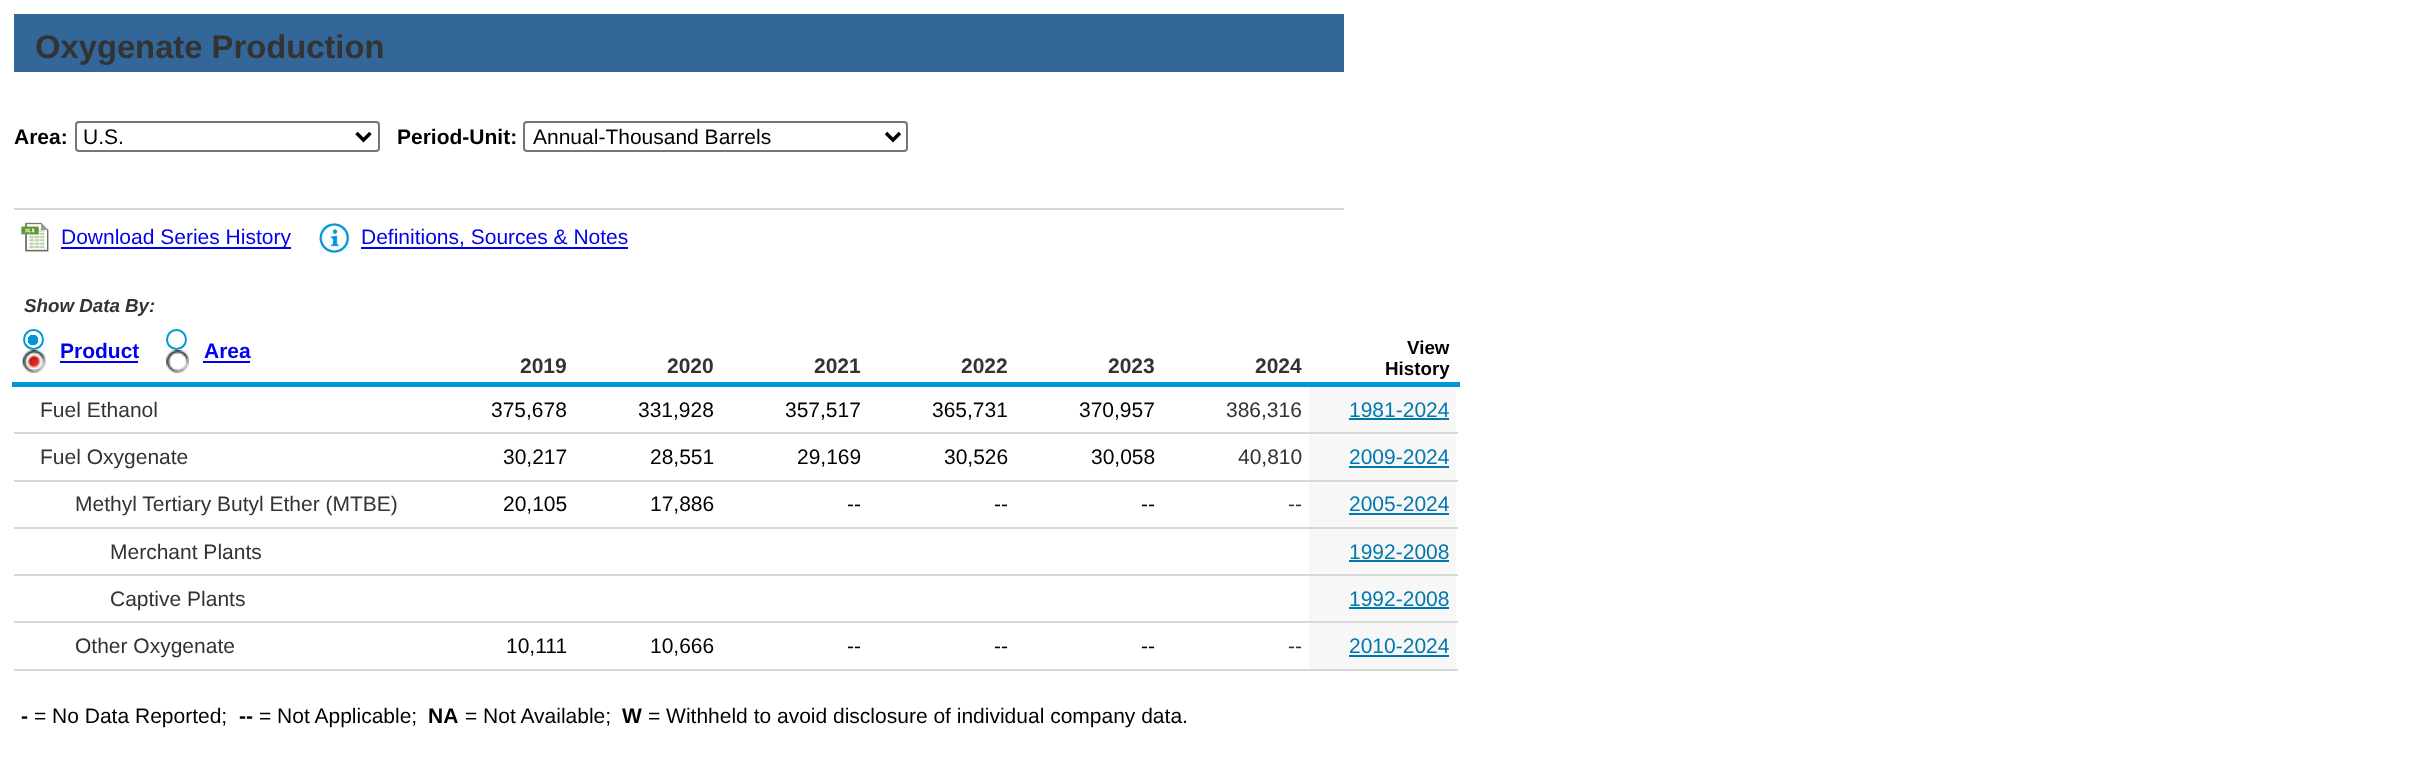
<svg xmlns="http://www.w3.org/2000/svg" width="2432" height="758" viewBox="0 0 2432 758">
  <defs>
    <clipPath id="clip1"><rect x="23" y="329" width="21" height="21" rx="10.5"/></clipPath>
    <radialGradient id="g1" gradientUnits="userSpaceOnUse" cx="33" cy="340" r="12"><stop offset="0" stop-color="#0096d7"/><stop offset="0.45" stop-color="#0096d7"/><stop offset="0.45" stop-color="#fff"/></radialGradient>
  </defs>
  <rect width="100%" height="100%" fill="#fff"/>
  <path d="M14 208h1330v2H14z" fill="#d8d8d8"/>
  <path d="M14 14h1330v58H14z" fill="#369"/>
  <rect x="76" y="122" width="303" height="29" rx="3" fill="none" stroke="#767676" stroke-width="2"/>
  <path d="M356.5 133L363.5 140L370.5 133" fill="none" stroke="#000" stroke-width="3.5"/>
  <rect x="524" y="122" width="383" height="29" rx="3" fill="none" stroke="#767676" stroke-width="2"/>
  <path d="M886 133L893 140L900 133" fill="none" stroke="#000" stroke-width="3.5"/>
  <image x="20" y="222" width="29" height="30" href="img/1.png"/>
  <path d="M61 247h230v2H61z" fill="#00e"/>
  <image x="319" y="223" width="31" height="30" href="img/2.png"/>
  <path d="M361 247h267v2H361z" fill="#00e"/>
  <g clip-path="url(#clip1)">
    <path d="M25 331h17v17H25z" fill="url(#g1)"/>
  </g>
  <circle cx="33.5" cy="339.5" r="9.5" fill="none" stroke="#0096d7" stroke-width="2"/>
  <image x="22" y="350" width="24" height="23" href="img/3.png"/>
  <path d="M60 361h78v2H60z" fill="#00e"/>
  <circle cx="176.5" cy="339.5" r="9.5" fill="none" stroke="#0096d7" stroke-width="2"/>
  <image x="166" y="350" width="23" height="23" href="img/4.png"/>
  <path d="M203 361h47v2H203z" fill="#00e"/>
  <path d="M12 382h1448v5H12z" fill="#0096d7"/>
  <path d="M1309 387h147v45H1309z" fill="#f7f7f7"/>
  <path d="M14 432h1444v2H14z" fill="#d8d8d8"/>
  <path d="M1349 418h100v2H1349z" fill="#0078ac"/>
  <path d="M1309 434h147v46H1309z" fill="#f7f7f7"/>
  <path d="M14 480h1444v2H14z" fill="#d8d8d8"/>
  <path d="M1349 466h100v2H1349z" fill="#0078ac"/>
  <path d="M1309 482h147v45H1309z" fill="#f7f7f7"/>
  <path d="M14 527h1444v2H14z" fill="#d8d8d8"/>
  <path d="M1349 513h100v2H1349z" fill="#0078ac"/>
  <path d="M1309 529h147v45H1309z" fill="#f7f7f7"/>
  <path d="M14 574h1444v2H14z" fill="#d8d8d8"/>
  <path d="M1349 560h100v2H1349z" fill="#0078ac"/>
  <path d="M1309 576h147v45H1309z" fill="#f7f7f7"/>
  <path d="M14 621h1444v2H14z" fill="#d8d8d8"/>
  <path d="M1349 607h100v2H1349z" fill="#0078ac"/>
  <path d="M1309 623h147v46H1309z" fill="#f7f7f7"/>
  <path d="M14 669h1444v2H14z" fill="#d8d8d8"/>
  <path d="M1349 655h100v2H1349z" fill="#0078ac"/>
  <text x="35" y="58" font-family="Liberation Sans" font-size="32.75" font-weight="bold" fill="#333">Oxygenate Production</text>
  <text x="14" y="144" font-family="Liberation Sans" font-size="21" font-weight="bold" fill="#000">Area:</text>
  <text x="83" y="144" font-family="Liberation Sans" font-size="21" fill="#000">U.S.</text>
  <text x="397" y="144" font-family="Liberation Sans" font-size="21" font-weight="bold" fill="#000">Period-Unit:</text>
  <text x="533" y="144" font-family="Liberation Sans" font-size="21" fill="#000">Annual-Thousand Barrels</text>
  <g font-family="Liberation Sans" font-size="21" fill="#00e">
    <text x="61" y="244">Download Series History</text>
    <text x="361" y="244">Definitions, Sources &amp; Notes</text>
  </g>
  <text x="24" y="312" font-family="Liberation Sans" font-size="18.75" font-weight="bold" font-style="italic" fill="#333">Show Data By:</text>
  <g font-family="Liberation Sans" font-size="21" font-weight="bold" fill="#00e">
    <text x="60" y="358">Product</text>
    <text x="204" y="358">Area</text>
  </g>
  <g font-family="Liberation Sans" font-size="21" font-weight="bold" fill="#333">
    <text x="520" y="373">2019</text>
    <text x="667" y="373">2020</text>
    <text x="814" y="373">2021</text>
    <text x="961" y="373">2022</text>
    <text x="1108" y="373">2023</text>
    <text x="1255" y="373">2024</text>
  </g>
  <g font-family="Liberation Sans" font-size="18.75" font-weight="bold" fill="#000">
    <text x="1407" y="354">View</text>
    <text x="1385" y="375">History</text>
  </g>
  <text x="40" y="417" font-family="Liberation Sans" font-size="21" fill="#333">Fuel Ethanol</text>
  <g font-family="Liberation Sans" font-size="21" fill="#000">
    <text x="491" y="417">375,678</text>
    <text x="638" y="417">331,928</text>
    <text x="785" y="417">357,517</text>
    <text x="932" y="417">365,731</text>
    <text x="1079" y="417">370,957</text>
  </g>
  <text x="1226" y="417" font-family="Liberation Sans" font-size="21" fill="#333">386,316</text>
  <text x="1349" y="417" font-family="Liberation Sans" font-size="21" fill="#0078ac">1981-2024</text>
  <text x="40" y="464" font-family="Liberation Sans" font-size="21" fill="#333">Fuel Oxygenate</text>
  <g font-family="Liberation Sans" font-size="21" fill="#000">
    <text x="503" y="464">30,217</text>
    <text x="650" y="464">28,551</text>
    <text x="797" y="464">29,169</text>
    <text x="944" y="464">30,526</text>
    <text x="1091" y="464">30,058</text>
  </g>
  <text x="1238" y="464" font-family="Liberation Sans" font-size="21" fill="#333">40,810</text>
  <text x="1349" y="464" font-family="Liberation Sans" font-size="21" fill="#0078ac">2009-2024</text>
  <text x="75" y="511" font-family="Liberation Sans" font-size="21" fill="#333">Methyl Tertiary Butyl Ether (MTBE)</text>
  <g font-family="Liberation Sans" font-size="21" fill="#000">
    <text x="503" y="511">20,105</text>
    <text x="650" y="511">17,886</text>
    <text x="847" y="511">--</text>
    <text x="994" y="511">--</text>
    <text x="1141" y="511">--</text>
  </g>
  <text x="1288" y="511" font-family="Liberation Sans" font-size="21" fill="#333">--</text>
  <text x="1349" y="511" font-family="Liberation Sans" font-size="21" fill="#0078ac">2005-2024</text>
  <text x="110" y="559" font-family="Liberation Sans" font-size="21" fill="#333">Merchant Plants</text>
  <text x="1349" y="559" font-family="Liberation Sans" font-size="21" fill="#0078ac">1992-2008</text>
  <text x="110" y="606" font-family="Liberation Sans" font-size="21" fill="#333">Captive Plants</text>
  <text x="1349" y="606" font-family="Liberation Sans" font-size="21" fill="#0078ac">1992-2008</text>
  <text x="75" y="653" font-family="Liberation Sans" font-size="21" fill="#333">Other Oxygenate</text>
  <g font-family="Liberation Sans" font-size="21" fill="#000">
    <text x="506" y="653">10,111</text>
    <text x="650" y="653">10,666</text>
    <text x="847" y="653">--</text>
    <text x="994" y="653">--</text>
    <text x="1141" y="653">--</text>
  </g>
  <text x="1288" y="653" font-family="Liberation Sans" font-size="21" fill="#333">--</text>
  <text x="1349" y="653" font-family="Liberation Sans" font-size="21" fill="#0078ac">2010-2024</text>
  <text x="21" y="723" font-family="Liberation Sans" font-size="21" font-weight="bold" fill="#000">-</text>
  <text x="34" y="723" font-family="Liberation Sans" font-size="21" fill="#000">= No Data Reported;</text>
  <text x="239" y="723" font-family="Liberation Sans" font-size="21" font-weight="bold" fill="#000">--</text>
  <text x="259" y="723" font-family="Liberation Sans" font-size="21" fill="#000">= Not Applicable;</text>
  <text x="428" y="723" font-family="Liberation Sans" font-size="21" font-weight="bold" fill="#000">NA</text>
  <text x="465" y="723" font-family="Liberation Sans" font-size="21" fill="#000">= Not Available;</text>
  <text x="622" y="723" font-family="Liberation Sans" font-size="21" font-weight="bold" fill="#000">W</text>
  <text x="648" y="723" font-family="Liberation Sans" font-size="21" fill="#000">= Withheld to avoid disclosure of individual company data.</text>
</svg>
